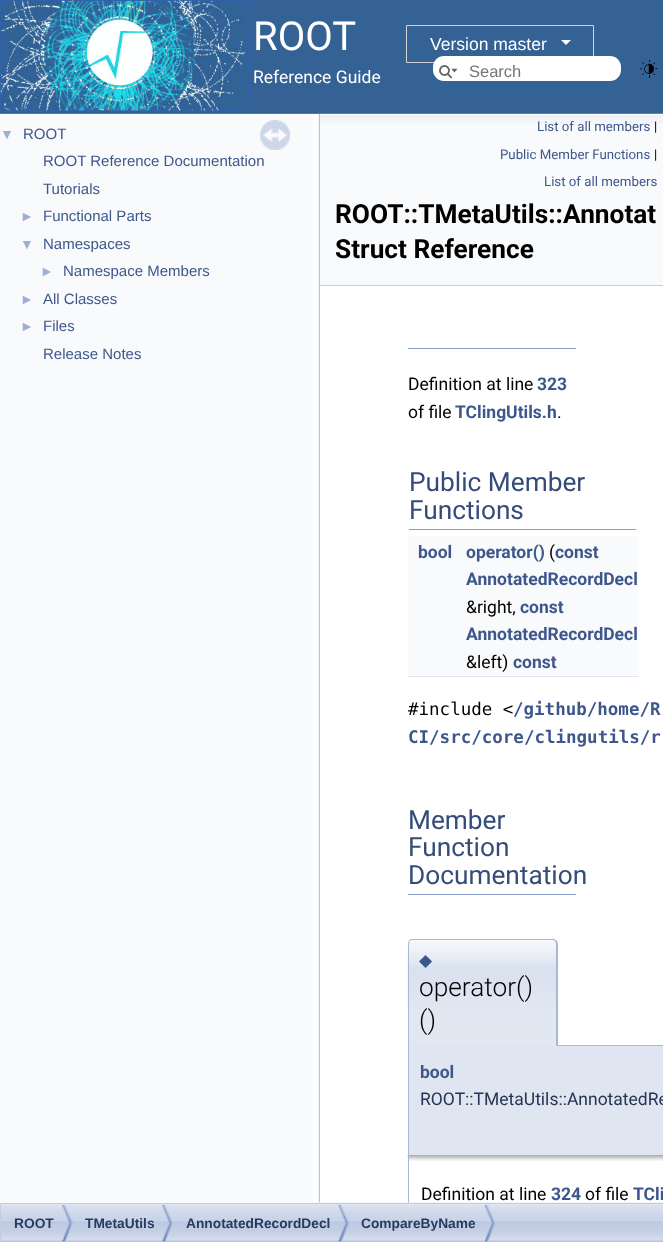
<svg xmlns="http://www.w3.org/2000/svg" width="663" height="1242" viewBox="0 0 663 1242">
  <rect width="100%" height="100%" fill="#fff"/>
  <path d="M0 113h663v1H0z" fill="#5373b4"/>
  <path d="M0 0h663v113H0z" fill="#346295"/>
  <image x="0" y="0" width="254" height="113" href="img/1.png"/>
  <path d="M406.5 25.5h187v37H406.5z" fill="none" stroke="#d3d3d3"/>
  <path d="M561 40H571L566 45Z" fill="#fff"/>
  <rect x="433" y="56" width="188" height="25" rx="11" fill="#fff"/>
  <image x="439" y="65" width="19" height="14" href="img/2.png"/>
  <image x="640" y="60" width="18" height="18" href="img/3.png"/>
  <image x="407" y="1155" width="256" height="6" href="img/8.png"/>
  <path d="M408 1155H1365V1224C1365 1227 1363 1229 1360 1229H412C410 1229 408 1227 408 1224ZM409 1155H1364V1224C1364 1226 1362 1228 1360 1228H412C410 1228 409 1226 409 1224Z" fill="#a8b8d9" fill-rule="evenodd"/>
  <image x="1" y="1202" width="662" height="40" href="img/9.png"/>
  <path d="M0 114h313v1089H0z" fill="#f9fafc"/>
  <image x="260" y="120" width="30" height="30" href="img/4.png"/>
  <image x="318" y="113" width="2" height="1090" href="img/5.png"/>
  <path d="M320 124h343v161H320z" fill="#f9fafc"/>
  <image x="320" y="113" width="343" height="11" href="img/6.png"/>
  <path d="M320 285h343v1H320z" fill="#c4cfe5"/>
  <path d="M408 348h168v1H408z" fill="#879ecb"/>
  <path d="M409 529h227v1H409z" fill="#879ecb"/>
  <path d="M408 536h230v139H408z" fill="#f9fafc"/>
  <path d="M408 676h230v1H408z" fill="#dee4f0"/>
  <path d="M408 894h168v1H408z" fill="#879ecb"/>
  <path d="M409 1046h254v109H409z" fill="#dfe5f1"/>
  <path d="M408 1045H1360C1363 1045 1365 1047 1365 1050V1155H408ZM409 1046H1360C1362 1046 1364 1048 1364 1050V1155H409Z" fill="#a8b8d9" fill-rule="evenodd"/>
  <path d="M413 939H553C556 939 558 941 558 944V1046H408V944C408 941 410 939 413 939Z" fill="#e2e8f2"/>
  <image x="407" y="940" width="151" height="70" href="img/7.png"/>
  <path d="M412 939H552C555 939 558 941 558 944V1046H408V944C408 941 410 939 412 939ZM412 940H552C555 940 556 942 556 944V1046H409V944C409 942 410 940 412 940Z" fill="#a8b8d9" fill-rule="evenodd"/>
  <path d="M0.5 1203.5h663v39H0.5z" fill="none" stroke="#c2cde4"/>
  <image x="62" y="1205" width="11" height="37" href="img/10.png"/>
  <image x="162" y="1205" width="11" height="37" href="img/11.png"/>
  <image x="338" y="1205" width="11" height="37" href="img/12.png"/>
  <image x="485" y="1205" width="10" height="37" href="img/13.png"/>
  <text x="253" y="50" font-family="Roboto" font-size="40" fill="#fff">ROOT</text>
  <text x="430" y="50" font-family="Liberation Sans" font-size="17.5" fill="#fff">Version master</text>
  <text x="253" y="83" font-family="Roboto" font-size="17.5" fill="#fff">Reference Guide</text>
  <text x="469" y="77" font-family="Liberation Sans" font-size="16.5" fill="#757575">Search</text>
  <text x="0" y="139" font-family="Liberation Sans" font-size="14" fill="#9cafd4">▼</text>
  <g font-family="Liberation Sans" font-size="15" fill="#3d578c">
    <text x="23" y="139">ROOT</text>
    <text x="43" y="166">ROOT Reference Documentation</text>
    <text x="43" y="194">Tutorials</text>
  </g>
  <text x="20" y="221" font-family="Liberation Sans" font-size="14" fill="#9cafd4">►</text>
  <text x="43" y="221" font-family="Liberation Sans" font-size="15" fill="#3d578c">Functional Parts</text>
  <text x="20" y="249" font-family="Liberation Sans" font-size="14" fill="#9cafd4">▼</text>
  <text x="43" y="249" font-family="Liberation Sans" font-size="15" fill="#3d578c">Namespaces</text>
  <text x="40" y="276" font-family="Liberation Sans" font-size="14" fill="#9cafd4">►</text>
  <text x="63" y="276" font-family="Liberation Sans" font-size="15" fill="#3d578c">Namespace Members</text>
  <text x="20" y="304" font-family="Liberation Sans" font-size="14" fill="#9cafd4">►</text>
  <text x="43" y="304" font-family="Liberation Sans" font-size="15" fill="#3d578c">All Classes</text>
  <text x="20" y="331" font-family="Liberation Sans" font-size="14" fill="#9cafd4">►</text>
  <g font-family="Liberation Sans" font-size="15" fill="#3d578c">
    <text x="43" y="331">Files</text>
    <text x="43" y="359">Release Notes</text>
  </g>
  <text x="537" y="131" font-family="Roboto" font-size="13.25" fill="#3d578c">List of all members</text>
  <text x="654" y="131" font-family="Roboto" font-size="13.25" fill="#000">|</text>
  <text x="500" y="159" font-family="Roboto" font-size="13.25" fill="#3d578c">Public Member Functions</text>
  <text x="654" y="159" font-family="Roboto" font-size="13.25" fill="#000">|</text>
  <text x="544" y="186" font-family="Roboto" font-size="13.25" fill="#3d578c">List of all members</text>
  <g font-family="Roboto" font-size="26.25" font-weight="bold" fill="#000">
    <text x="335" y="223">ROOT::TMetaUtils::Annotat</text>
    <text x="335" y="258">Struct Reference</text>
  </g>
  <text x="408" y="390" font-family="Roboto" font-size="17.5" fill="#000">Definition at line</text>
  <text x="537" y="390" font-family="Roboto" font-size="17.5" font-weight="bold" fill="#3d578c">323</text>
  <text x="408" y="418" font-family="Roboto" font-size="17.5" fill="#000">of file</text>
  <text x="455" y="418" font-family="Roboto" font-size="17.5" font-weight="bold" fill="#3d578c">TClingUtils.h</text>
  <text x="557" y="418" font-family="Roboto" font-size="17.5" fill="#000">.</text>
  <g font-family="Roboto" font-size="26.25" fill="#354c7b">
    <text x="409" y="491">Public Member</text>
    <text x="409" y="519">Functions</text>
  </g>
  <g font-family="Roboto" font-size="17.5" font-weight="bold" fill="#3d578c">
    <text x="418" y="558">bool</text>
    <text x="466" y="558">operator()</text>
  </g>
  <text x="549" y="558" font-family="Roboto" font-size="17.5" fill="#000">(</text>
  <g font-family="Roboto" font-size="17.5" font-weight="bold" fill="#3d578c">
    <text x="555" y="558">const</text>
    <text x="466" y="585">AnnotatedRecordDecl</text>
  </g>
  <text x="466" y="613" font-family="Roboto" font-size="17.5" fill="#000">&amp;right,</text>
  <g font-family="Roboto" font-size="17.5" font-weight="bold" fill="#3d578c">
    <text x="520" y="613">const</text>
    <text x="466" y="640">AnnotatedRecordDecl</text>
  </g>
  <text x="466" y="668" font-family="Roboto" font-size="17.5" fill="#000">&amp;left)</text>
  <text x="513" y="668" font-family="Roboto" font-size="17.5" font-weight="bold" fill="#3d578c">const</text>
  <text x="408" y="715" font-family="DejaVu Sans Mono" font-size="17.5" fill="#000">#include &lt;</text>
  <g font-family="DejaVu Sans Mono" font-size="17.5" font-weight="bold" fill="#3d578c">
    <text x="513" y="715">/github/home/R</text>
    <text x="408" y="743">CI/src/core/clingutils/r</text>
  </g>
  <g font-family="Roboto" font-size="26.25" fill="#354c7b">
    <text x="408" y="829">Member</text>
    <text x="408" y="856">Function</text>
    <text x="408" y="884">Documentation</text>
  </g>
  <text x="419" y="966" font-family="DejaVu Sans" font-size="17" fill="#3d578c">◆</text>
  <g font-family="Roboto" font-size="26.25" font-weight="300" fill="#000">
    <text x="419" y="996">operator()</text>
    <text x="419" y="1029">()</text>
  </g>
  <text x="420" y="1078" font-family="Roboto" font-size="17.5" font-weight="bold" fill="#3d578c">bool</text>
  <text x="420" y="1105" font-family="Roboto" font-size="17.5" fill="#253555">ROOT::TMetaUtils::AnnotatedRe</text>
  <text x="421" y="1200" font-family="Roboto" font-size="17.5" fill="#000">Definition at line</text>
  <text x="551" y="1200" font-family="Roboto" font-size="17.5" font-weight="bold" fill="#3d578c">324</text>
  <text x="585" y="1200" font-family="Roboto" font-size="17.5" fill="#000">of file</text>
  <text x="633" y="1200" font-family="Roboto" font-size="17.5" font-weight="bold" fill="#3d578c">TCli</text>
  <g font-family="Liberation Sans" font-size="13.75" font-weight="bold" fill="#283a5d">
    <text x="14" y="1228">ROOT</text>
    <text x="85" y="1228">TMetaUtils</text>
    <text x="186" y="1228">AnnotatedRecordDecl</text>
    <text x="361" y="1228">CompareByName</text>
  </g>
</svg>
